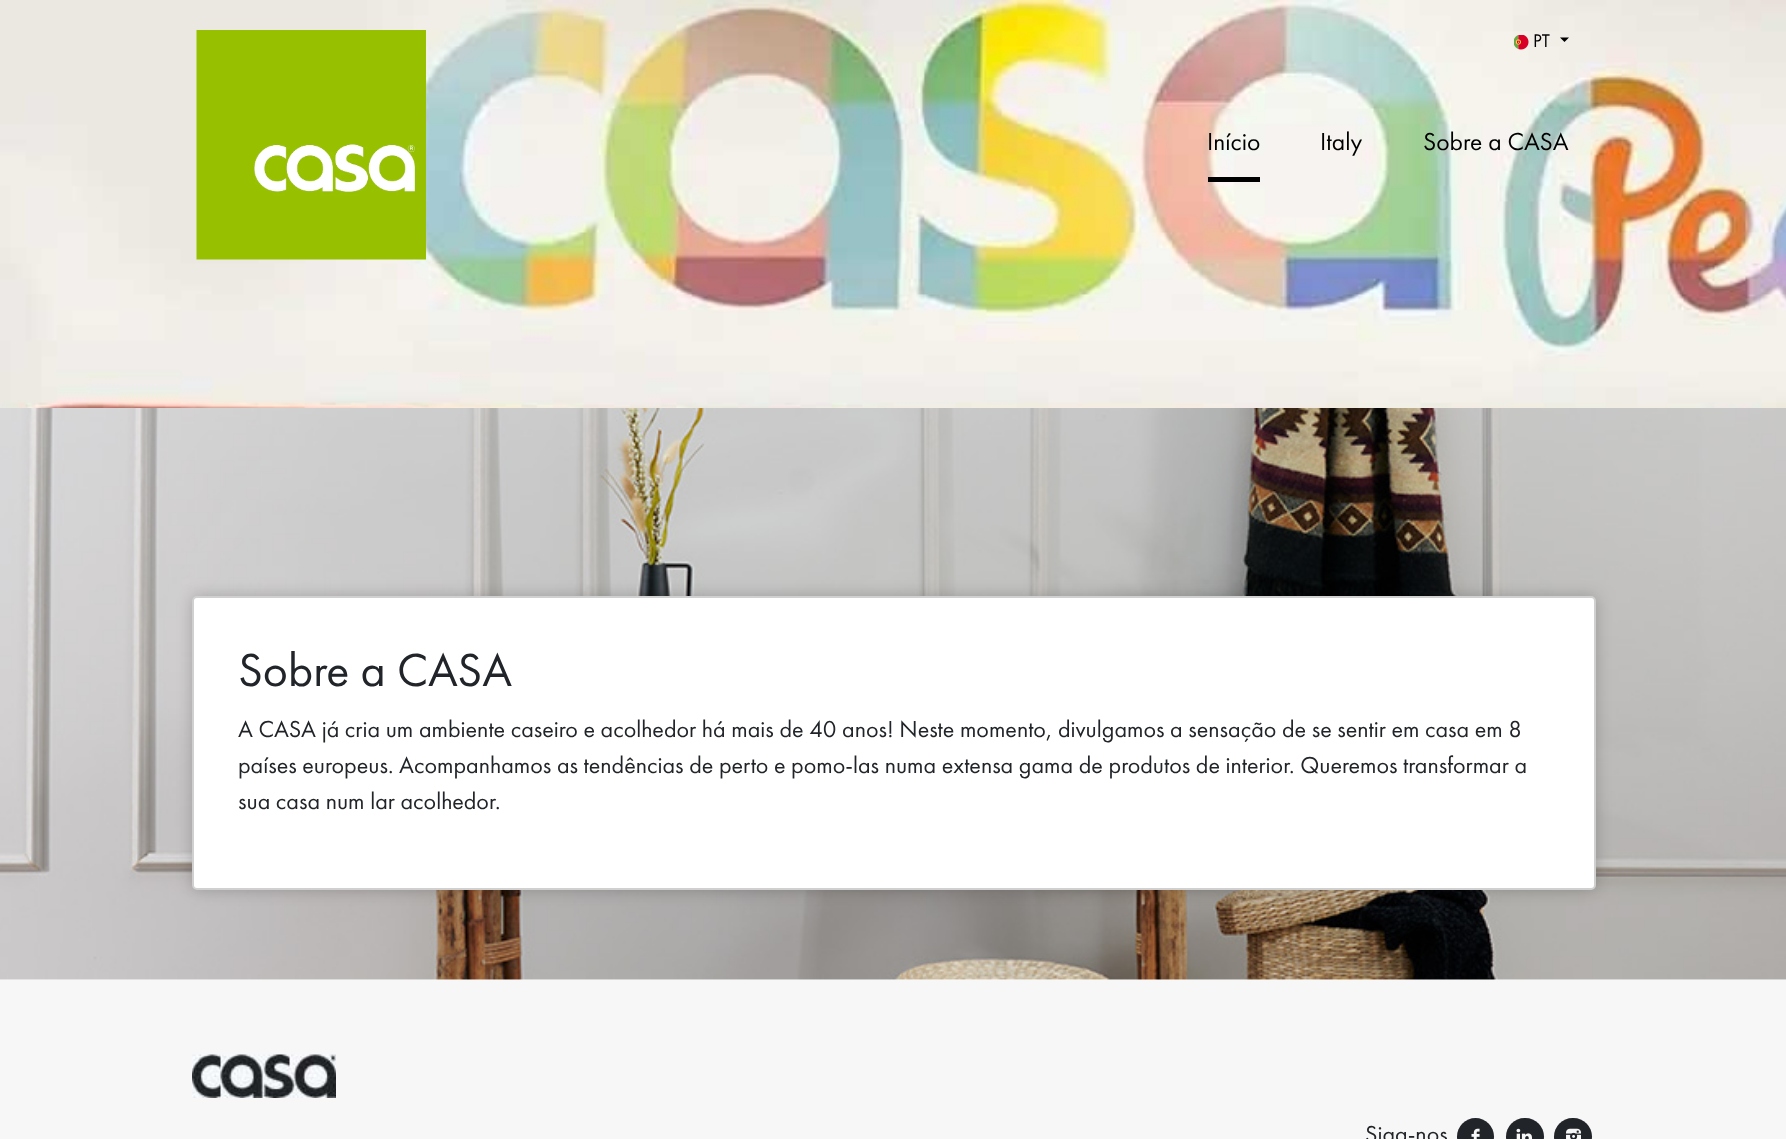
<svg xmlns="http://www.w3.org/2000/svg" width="1786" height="1139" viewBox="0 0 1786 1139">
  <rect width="100%" height="100%" fill="#fff"/>
  <image x="0" y="0" width="1786" height="408" href="img/1.png"/>
  <image x="1514" y="35" width="15" height="15" href="img/2.png"/>
  <path d="M1560 37.5H1569L1564.5 42Z" fill="#000"/>
  <image x="196" y="30" width="230" height="230" href="img/3.png"/>
  <path d="M1208 177h52v5H1208z" fill="#000"/>
  <image x="0" y="408" width="1786" height="572" href="img/4.png"/>
  <rect x="192" y="596" width="1404" height="294" rx="5" fill="#00000033" filter="blur(7.5px)"/>
  <rect x="193" y="597" width="1402" height="292" rx="4" fill="#fff" stroke="#d0d0d0" stroke-width="2"/>
  <path d="M0 980h1786v159H0z" fill="#f7f7f7"/>
  <image x="192" y="1054" width="144" height="44" href="img/5.png"/>
  <circle cx="1475.5" cy="1136.5" r="18.5" fill="#212529"/>
  <image x="1471" y="1128" width="9" height="11" href="img/6.png"/>
  <rect x="1506" y="1118" width="38" height="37" rx="18.5" fill="#212529"/>
  <image x="1516" y="1128" width="17" height="11" href="img/7.png"/>
  <rect x="1554" y="1118" width="38" height="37" rx="18.5" fill="#212529"/>
  <image x="1566" y="1128" width="15" height="11" href="img/8.png"/>
  <text x="1533" y="47" font-family="Futura PT" font-size="19" fill="#000">PT</text>
  <g font-family="Futura PT" font-size="25.5" fill="#000">
    <text x="1207" y="150">Início</text>
    <text x="1320" y="150">Italy</text>
    <text x="1423" y="150">Sobre a CASA</text>
  </g>
  <text x="238" y="686" font-family="Futura PT" font-size="48" fill="#212529">Sobre a CASA</text>
  <g font-family="Futura PT" font-size="24" fill="#212529">
    <text x="238" y="737">A CASA já cria um ambiente caseiro e acolhedor há mais de 40 anos! Neste momento, divulgamos a sensação de se sentir em casa em 8</text>
    <text x="238" y="773">países europeus. Acompanhamos as tendências de perto e pomo-las numa extensa gama de produtos de interior. Queremos transformar a</text>
    <text x="238" y="809">sua casa num lar acolhedor.</text>
    <text x="1365" y="1142">Siga-nos</text>
  </g>
</svg>
